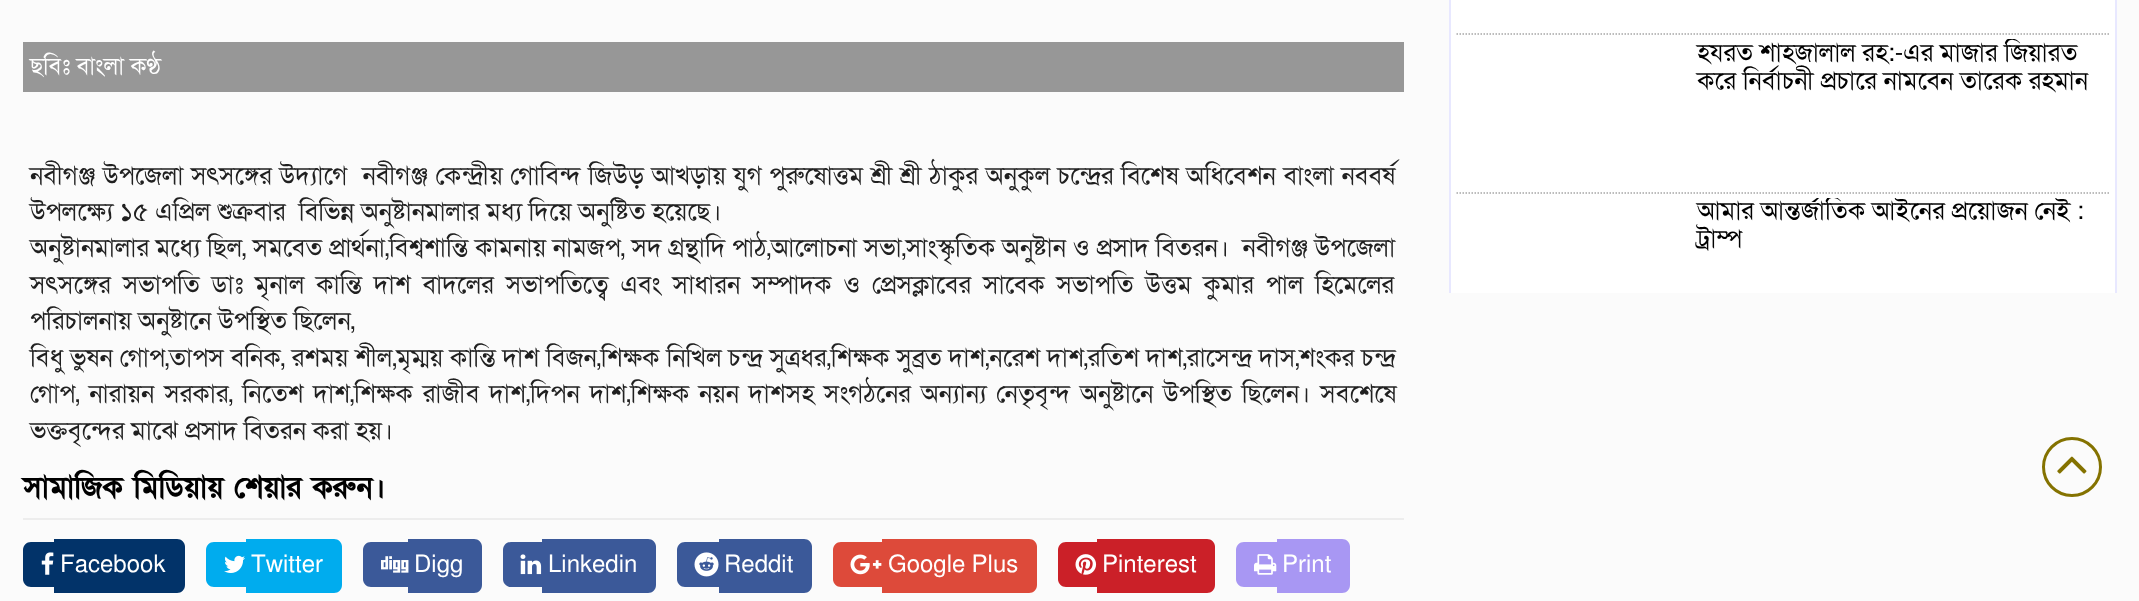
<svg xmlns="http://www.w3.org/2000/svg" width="2139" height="601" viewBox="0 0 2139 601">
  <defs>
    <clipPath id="clip1"><path d="M1457 39h652v153H1457z"/></clipPath>
    <clipPath id="clip2"><path d="M1457 198h652v95H1457z"/></clipPath>
  </defs>
  <rect width="100%" height="100%" fill="#fbfbfb"/>
  <path d="M23 42h1381v50H23z" fill="#979797"/>
  <path d="M23 518h1381v2H23z" fill="#ededed"/>
  <path d="M31 542H54V587H31C26.5 587 23 583.5 23 579V550C23 545.5 26.5 542 31 542Z" fill="#023369"/>
  <path d="M54 539H177C181.5 539 185 542.5 185 547V585C185 589.5 181.5 593 177 593H54Z" fill="#023369"/>
  <image x="41" y="552" width="13" height="23" href="img/1.png"/>
  <path d="M214 542H246V587H214C209.5 587 206 583.5 206 579V550C206 545.5 209.5 542 214 542Z" fill="#00acee"/>
  <path d="M246 539H334C338.5 539 342 542.5 342 547V585C342 589.5 338.5 593 334 593H246Z" fill="#00acee"/>
  <image x="224" y="555" width="21" height="18" href="img/2.png"/>
  <path d="M371 542H408V587H371C366.5 587 363 583.5 363 579V550C363 545.5 366.5 542 371 542Z" fill="#3b5999"/>
  <path d="M408 539H474C478.5 539 482 542.5 482 547V585C482 589.5 478.5 593 474 593H408Z" fill="#3b5999"/>
  <image x="381" y="556" width="28" height="17" href="img/3.png"/>
  <path d="M511 542H542V587H511C506.5 587 503 583.5 503 579V550C503 545.5 506.5 542 511 542Z" fill="#3b5999"/>
  <path d="M542 539H648C652.5 539 656 542.5 656 547V585C656 589.5 652.5 593 648 593H542Z" fill="#3b5999"/>
  <image x="520" y="554" width="22" height="21" href="img/4.png"/>
  <path d="M685 542H719V587H685C680.5 587 677 583.5 677 579V550C677 545.5 680.5 542 685 542Z" fill="#3b5999"/>
  <path d="M719 539H804C808.5 539 812 542.5 812 547V585C812 589.5 808.5 593 804 593H719Z" fill="#3b5999"/>
  <image x="694" y="552" width="25" height="25" href="img/5.png"/>
  <path d="M841 542H882V587H841C836.5 587 833 583.5 833 579V550C833 545.5 836.5 542 841 542Z" fill="#dd4a3a"/>
  <path d="M882 539H1029C1033.5 539 1037 542.5 1037 547V585C1037 589.5 1033.5 593 1029 593H882Z" fill="#dd4a3a"/>
  <image x="850" y="554" width="32" height="21" href="img/6.png"/>
  <path d="M1066 542H1097V587H1066C1061.5 587 1058 583.5 1058 579V550C1058 545.5 1061.5 542 1066 542Z" fill="#cb2028"/>
  <path d="M1097 539H1207C1211.5 539 1215 542.5 1215 547V585C1215 589.5 1211.5 593 1207 593H1097Z" fill="#cb2028"/>
  <image x="1075" y="554" width="22" height="21" href="img/7.png"/>
  <path d="M1244 542H1277V587H1244C1239.5 587 1236 583.5 1236 579V550C1236 545.5 1239.5 542 1244 542Z" fill="#a897f3"/>
  <path d="M1277 539H1342C1346.5 539 1350 542.5 1350 547V585C1350 589.5 1346.5 593 1342 593H1277Z" fill="#a897f3"/>
  <image x="1254" y="554" width="23" height="21" href="img/8.png"/>
  <path d="M1451 0h664v293H1451z" fill="#fff"/>
  <path d="M2115 0h2v293H2115z" fill="#e8e8ff"/>
  <path d="M1449 0h2v293H1449z" fill="#e8e8ff"/>
  <path d="M1456.5 34H2109" fill="none" stroke="#a6a6a6" stroke-width="1.5" stroke-dasharray="1.5 1.5"/>
  <path d="M1456.5 193H2109" fill="none" stroke="#a6a6a6" stroke-width="1.5" stroke-dasharray="1.5 1.5"/>
  <circle cx="2072" cy="467" r="28.5" fill="none" stroke="#847200" stroke-width="3"/>
  <image x="2057" y="456" width="30" height="18" href="img/9.png"/>
  <text x="30" y="74" font-family="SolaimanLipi" font-size="24" fill="#fff">ছবিঃ বাংলা কণ্ঠ</text>
  <g font-family="SolaimanLipi" font-size="25.5" fill="#202020">
    <text x="30" y="184" word-spacing="1" xml:space="preserve">নবীগঞ্জ উপজেলা সৎসঙ্গের উদ্যাগে  নবীগঞ্জ কেন্দ্রীয় গোবিন্দ জিউড় আখড়ায় যুগ পুরুষোত্তম শ্রী শ্রী ঠাকুর অনুকুল চন্দ্রের বিশেষ অধিবেশন বাংলা নববর্ষ</text>
    <text x="30" y="220" xml:space="preserve">উপলক্ষ্যে ১৫ এপ্রিল শুক্রবার  বিভিন্ন অনুষ্টানমালার মধ্য দিয়ে অনুষ্টিত হয়েছে।</text>
    <text x="30" y="256" word-spacing="0.1" xml:space="preserve">অনুষ্টানমালার মধ্যে ছিল, সমবেত প্রার্থনা,বিশ্বশান্তি কামনায় নামজপ, সদ গ্রন্থাদি পাঠ,আলোচনা সভা,সাংস্কৃতিক অনুষ্টান ও প্রসাদ বিতরন।  নবীগঞ্জ উপজেলা</text>
    <text x="30" y="293" word-spacing="5.25">সৎসঙ্গের সভাপতি ডাঃ মৃনাল কান্তি দাশ বাদলের সভাপতিত্বে এবং সাধারন সম্পাদক ও প্রেসক্লাবের সাবেক সভাপতি উত্তম কুমার পাল হিমেলের</text>
    <text x="30" y="329">পরিচালনায় অনুষ্টানে উপস্থিত ছিলেন,</text>
    <text x="30" y="366" word-spacing="0.25">বিধু ভুষন গোপ,তাপস বনিক, রশময় শীল,মৃম্ময় কান্তি দাশ বিজন,শিক্ষক নিখিল চন্দ্র সুত্রধর,শিক্ষক সুব্রত দাশ,নরেশ দাশ,রতিশ দাশ,রাসেন্দ্র দাস,শংকর চন্দ্র</text>
    <text x="30" y="402" word-spacing="3.25">গোপ, নারায়ন সরকার, নিতেশ দাশ,শিক্ষক রাজীব দাশ,দিপন দাশ,শিক্ষক নয়ন দাশসহ সংগঠনের অন্যান্য নেতৃবৃন্দ অনুষ্টানে উপস্থিত ছিলেন। সবশেষে</text>
    <text x="30" y="439">ভক্তবৃন্দের মাঝে প্রসাদ বিতরন করা হয়।</text>
  </g>
  <text x="23" y="497" font-family="SolaimanLipi" font-size="30" font-weight="bold" fill="#000">সামাজিক মিডিয়ায় শেয়ার করুন।</text>
  <g font-family="SolaimanLipi" font-size="24" fill="#fff">
    <text x="60" y="572">Facebook</text>
    <text x="251" y="572">Twitter</text>
    <text x="414" y="572">Digg</text>
    <text x="548" y="572">Linkedin</text>
    <text x="724" y="572">Reddit</text>
    <text x="888" y="572">Google Plus</text>
    <text x="1102" y="572">Pinterest</text>
    <text x="1282" y="572">Print</text>
  </g>
  <g clip-path="url(#clip1)">
    <text x="1697" y="61" font-family="SolaimanLipi" font-size="25.5" fill="#000">হযরত শাহজালাল রহ:-এর মাজার জিয়ারত</text>
  </g>
  <text x="1697" y="89" font-family="SolaimanLipi" font-size="25.5" fill="#000">করে নির্বাচনী প্রচারে নামবেন তারেক রহমান</text>
  <g clip-path="url(#clip2)">
    <text x="1697" y="219" font-family="SolaimanLipi" font-size="25.5" fill="#000">আমার আন্তর্জাতিক আইনের প্রয়োজন নেই :</text>
  </g>
  <text x="1697" y="247" font-family="SolaimanLipi" font-size="25.5" fill="#000">ট্রাম্প</text>
</svg>
